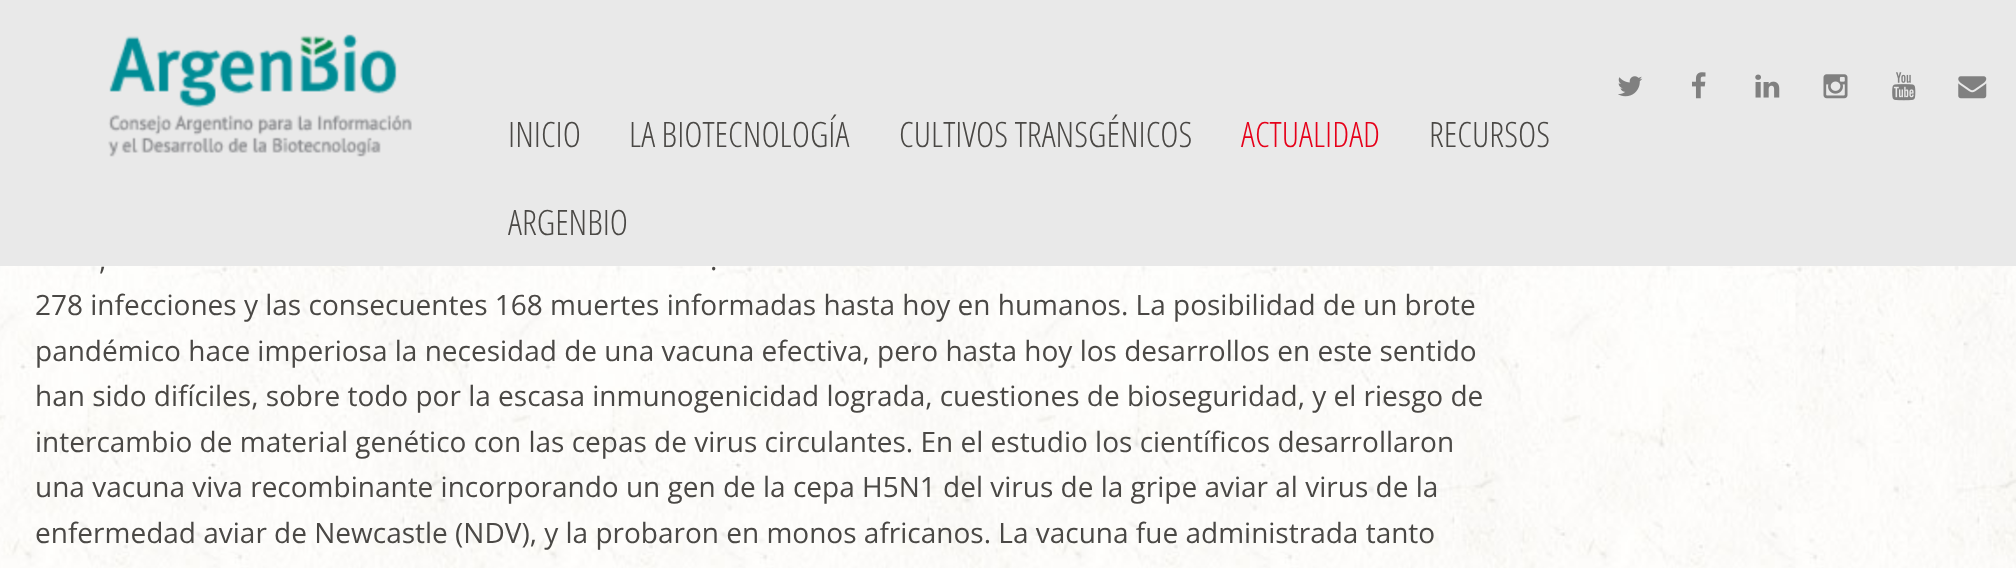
<svg xmlns="http://www.w3.org/2000/svg" width="2016" height="568" viewBox="0 0 2016 568">
  <rect width="100%" height="100%" fill="#fff"/>
  <image x="0" y="266" width="2016" height="302" href="img/1.png"/>
  <path d="M0 0h2016v266H0z" fill="#e9e9e9"/>
  <image x="108" y="34" width="304" height="123" href="img/2.png"/>
  <image x="1618" y="76" width="25" height="21" href="img/3.png"/>
  <image x="1692" y="72" width="14" height="27" href="img/4.png"/>
  <image x="1755" y="74" width="25" height="24" href="img/5.png"/>
  <image x="1823" y="74" width="25" height="25" href="img/6.png"/>
  <image x="1892" y="72" width="24" height="29" href="img/7.png"/>
  <image x="1958" y="76" width="29" height="23" href="img/8.png"/>
  <g font-family="Open Sans Condensed" font-size="35" font-weight="300" fill="#4a4845">
    <text x="508" y="147">INICIO</text>
    <text x="629" y="147">LA BIOTECNOLOGÍA</text>
    <text x="899" y="147">CULTIVOS TRANSGÉNICOS</text>
  </g>
  <text x="1241" y="147" font-family="Open Sans Condensed" font-size="35" font-weight="300" fill="#e60019">ACTUALIDAD</text>
  <g font-family="Open Sans Condensed" font-size="35" font-weight="300" fill="#4a4845">
    <text x="1429" y="147">RECURSOS</text>
    <text x="508" y="235">ARGENBIO</text>
  </g>
  <g font-family="Open Sans" font-size="28" fill="#4a4845">
    <text x="99" y="270">,</text>
    <text x="710" y="270">.</text>
    <text x="35" y="315">278 infecciones y las consecuentes 168 muertes informadas hasta hoy en humanos. La posibilidad de un brote</text>
    <text x="35" y="361">pandémico hace imperiosa la necesidad de una vacuna efectiva, pero hasta hoy los desarrollos en este sentido</text>
    <text x="35" y="406">han sido difíciles, sobre todo por la escasa inmunogenicidad lograda, cuestiones de bioseguridad, y el riesgo de</text>
    <text x="35" y="452">intercambio de material genético con las cepas de virus circulantes. En el estudio los científicos desarrollaron</text>
    <text x="35" y="497">una vacuna viva recombinante incorporando un gen de la cepa H5N1 del virus de la gripe aviar al virus de la</text>
    <text x="35" y="543">enfermedad aviar de Newcastle (NDV), y la probaron en monos africanos. La vacuna fue administrada tanto</text>
  </g>
</svg>
